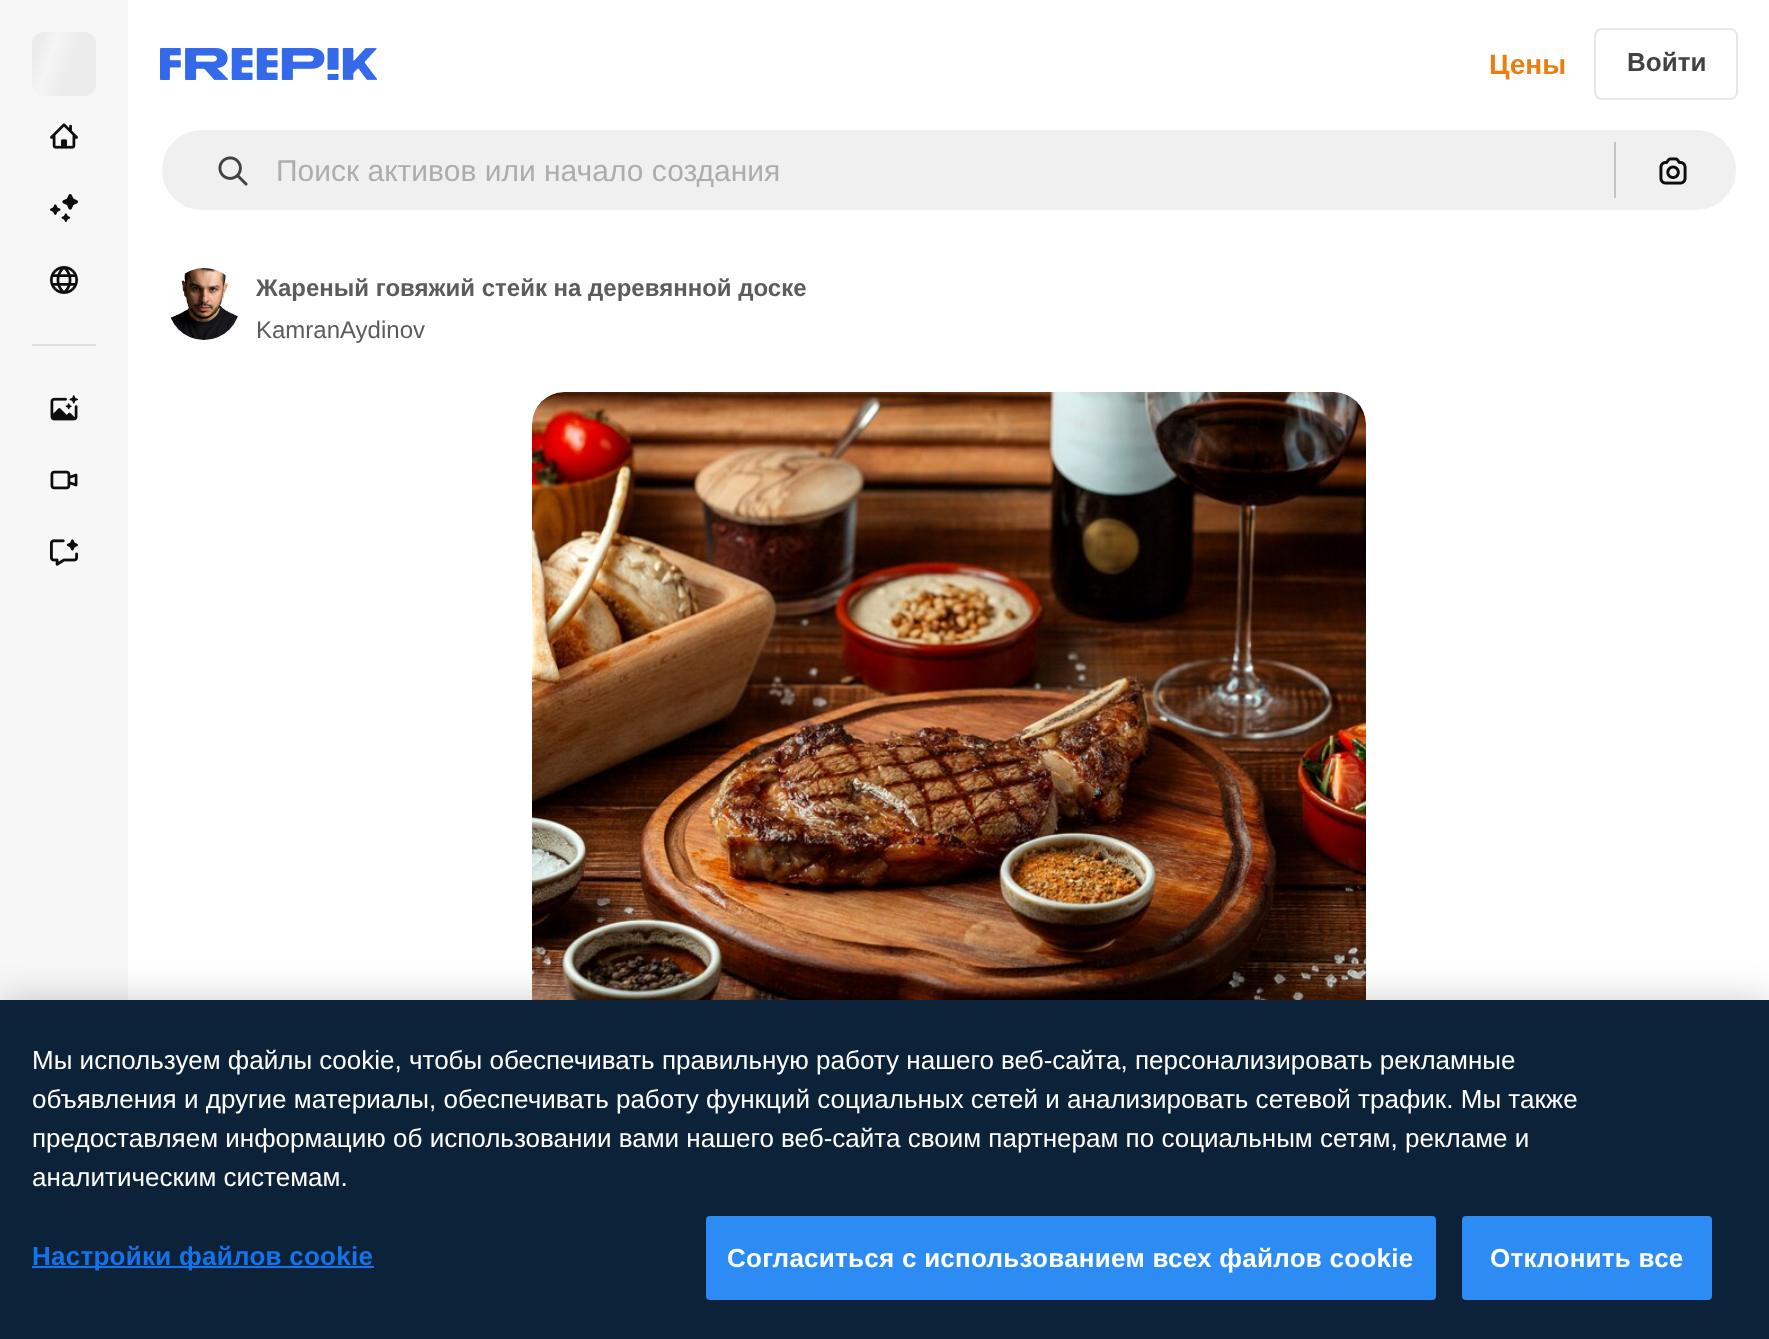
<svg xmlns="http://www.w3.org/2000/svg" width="1769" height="1339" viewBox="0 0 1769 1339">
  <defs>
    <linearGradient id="g1" gradientUnits="userSpaceOnUse" x1="29" y1="40" x2="163" y2="88"><stop offset="0.08" stop-color="#ececec"/><stop offset="0.18" stop-color="#f5f5f5"/><stop offset="0.33" stop-color="#ececec"/></linearGradient>
  </defs>
  <rect width="100%" height="100%" fill="#fff"/>
  <path d="M0 0h128v1000H0z" fill="#f7f7f7"/>
  <rect x="32" y="32" width="64" height="64" rx="12" fill="url(#g1)"/>
  <image x="50" y="123" width="28" height="26" href="img/1.png"/>
  <image x="50" y="194" width="28" height="28" href="img/2.png"/>
  <image x="50" y="266" width="28" height="28" href="img/3.png"/>
  <path d="M32 344h64v2H32z" fill="#e0e0e0"/>
  <image x="50" y="395" width="28" height="26" href="img/4.png"/>
  <image x="50" y="470" width="28" height="20" href="img/5.png"/>
  <image x="50" y="539" width="28" height="27" href="img/6.png"/>
  <image x="160" y="48" width="218" height="32" href="img/7.png"/>
  <rect x="1595" y="29" width="142" height="70" rx="7" fill="none" stroke="#e7e7e7" stroke-width="2"/>
  <rect x="161" y="129" width="1576" height="82" rx="41" fill="#f0f0f0" stroke="#fff" stroke-width="2"/>
  <image x="218" y="156" width="30" height="30" href="img/8.png"/>
  <path d="M1614 142h2v56H1614z" fill="#c3c3c3"/>
  <image x="1659" y="157" width="28" height="28" href="img/9.png"/>
  <image x="170" y="268" width="68" height="72" href="img/10.png"/>
  <image x="532" y="392" width="834" height="608" href="img/11.png"/>
  <path d="M0 1000h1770v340H0z" fill="#00000033" filter="blur(18px)"/>
  <path d="M0 1000h1769v339H0z" fill="#0b2239"/>
  <path d="M32 1266h342v2H32z" fill="#1273eb"/>
  <rect x="707" y="1217" width="728" height="82" rx="3" fill="#2c8cf4" stroke="#2c8cf4" stroke-width="2"/>
  <rect x="1463" y="1217" width="248" height="82" rx="3" fill="#2c8cf4" stroke="#2c8cf4" stroke-width="2"/>
  <text x="1489" y="74" font-family="Liberation Sans" font-size="28" font-weight="bold" fill="#ea7e11">Цены</text>
  <text x="1627" y="71" font-family="Liberation Sans" font-size="26" font-weight="bold" fill="#424242">Войти</text>
  <text x="276" y="181" font-family="Liberation Sans" font-size="30" fill="#adadad">Поиск активов или начало создания</text>
  <text x="256" y="296" font-family="Liberation Sans" font-size="24" font-weight="bold" fill="#5c5c5c">Жареный говяжий стейк на деревянной доске</text>
  <text x="256" y="338" font-family="Liberation Sans" font-size="24" fill="#5c5c5c">KamranAydinov</text>
  <g font-family="Liberation Sans" font-size="26.02" fill="#fff">
    <text x="32" y="1069">Мы используем файлы cookie, чтобы обеспечивать правильную работу нашего веб-сайта, персонализировать рекламные</text>
    <text x="32" y="1108">объявления и другие материалы, обеспечивать работу функций социальных сетей и анализировать сетевой трафик. Мы также</text>
    <text x="32" y="1147">предоставляем информацию об использовании вами нашего веб-сайта своим партнерам по социальным сетям, рекламе и</text>
    <text x="32" y="1186">аналитическим системам.</text>
  </g>
  <text x="32" y="1265" font-family="Liberation Sans" font-size="26.02" font-weight="bold" letter-spacing="0.25" fill="#1273eb">Настройки файлов cookie</text>
  <g font-family="Liberation Sans" font-size="26.02" font-weight="bold" letter-spacing="0.25" fill="#fff">
    <text x="727" y="1267">Согласиться с использованием всех файлов cookie</text>
    <text x="1490" y="1267">Отклонить все</text>
  </g>
</svg>
